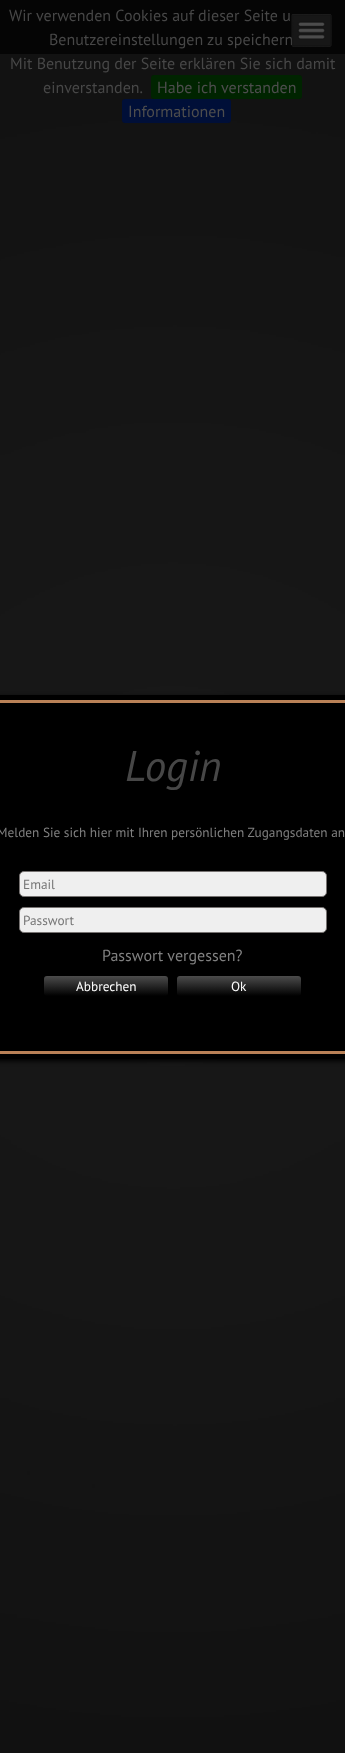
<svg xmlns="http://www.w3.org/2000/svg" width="345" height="1753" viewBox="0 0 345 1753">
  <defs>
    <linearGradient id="g1" gradientUnits="userSpaceOnUse" x1="106" y1="976" x2="106" y2="996"><stop offset="0" stop-color="#4c4c4c"/><stop offset="1" stop-color="#000"/></linearGradient>
    <linearGradient id="g2" gradientUnits="userSpaceOnUse" x1="239" y1="976" x2="239" y2="996"><stop offset="0" stop-color="#4c4c4c"/><stop offset="1" stop-color="#000"/></linearGradient>
  </defs>
  <rect width="100%" height="100%" fill="#fff"/>
  <image x="0" y="54" width="345" height="1699" href="img/1.png"/>
  <path d="M0 0h345v54H0z" fill="#050505"/>
  <rect x="151" y="75" width="151" height="24" rx="3" fill="#002400"/>
  <rect x="122" y="99" width="109" height="24" rx="3" fill="#000f38"/>
  <path d="M-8 697h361v364H-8z" fill="#000" filter="blur(2.5px)"/>
  <path d="M-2.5 697.5h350v359H-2.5z" fill="#b98157" stroke="#000" stroke-width="5"/>
  <path d="M0 703h345v348H0z" fill="#000"/>
  <rect x="19.5" y="871.5" width="307" height="25" rx="4.5" fill="#efefef" stroke="#767271"/>
  <rect x="19.5" y="907.5" width="307" height="25" rx="4.5" fill="#efefef" stroke="#767271"/>
  <rect x="44" y="976" width="124" height="20" rx="3" fill="url(#g1)"/>
  <rect x="177" y="976" width="124" height="20" rx="3" fill="url(#g2)"/>
  <g font-family="PT Sans" font-size="16" fill="#474747">
    <text x="9" y="21">Wir verwenden Cookies auf dieser Seite u</text>
    <text x="49" y="45">Benutzereinstellungen zu speichern</text>
    <text x="10" y="69">Mit Benutzung der Seite erklären Sie sich damit</text>
    <text x="43" y="93">einverstanden.</text>
  </g>
  <g font-family="PT Sans" font-size="16" fill="#4d4d4d">
    <text x="157" y="93">Habe ich verstanden</text>
    <text x="128" y="117">Informationen</text>
  </g>
  <image x="291" y="14" width="41" height="33" href="img/2.png"/>
  <text x="125" y="781" font-family="PT Sans" font-size="43" font-style="italic" fill="#474747">Login</text>
  <text x="-3" y="837" font-family="PT Sans" font-size="13.3" fill="#808080">Melden Sie sich hier mit Ihren persönlichen Zugangsdaten an</text>
  <g font-family="PT Sans" font-size="13.3" fill="#757575">
    <text x="23" y="889">Email</text>
    <text x="23" y="925">Passwort</text>
  </g>
  <text x="102" y="961" font-family="PT Sans" font-size="16" fill="#808080">Passwort vergessen?</text>
  <g font-family="PT Sans" font-size="13.3" fill="#fff">
    <text x="76" y="991">Abbrechen</text>
    <text x="231" y="991">Ok</text>
  </g>
</svg>
